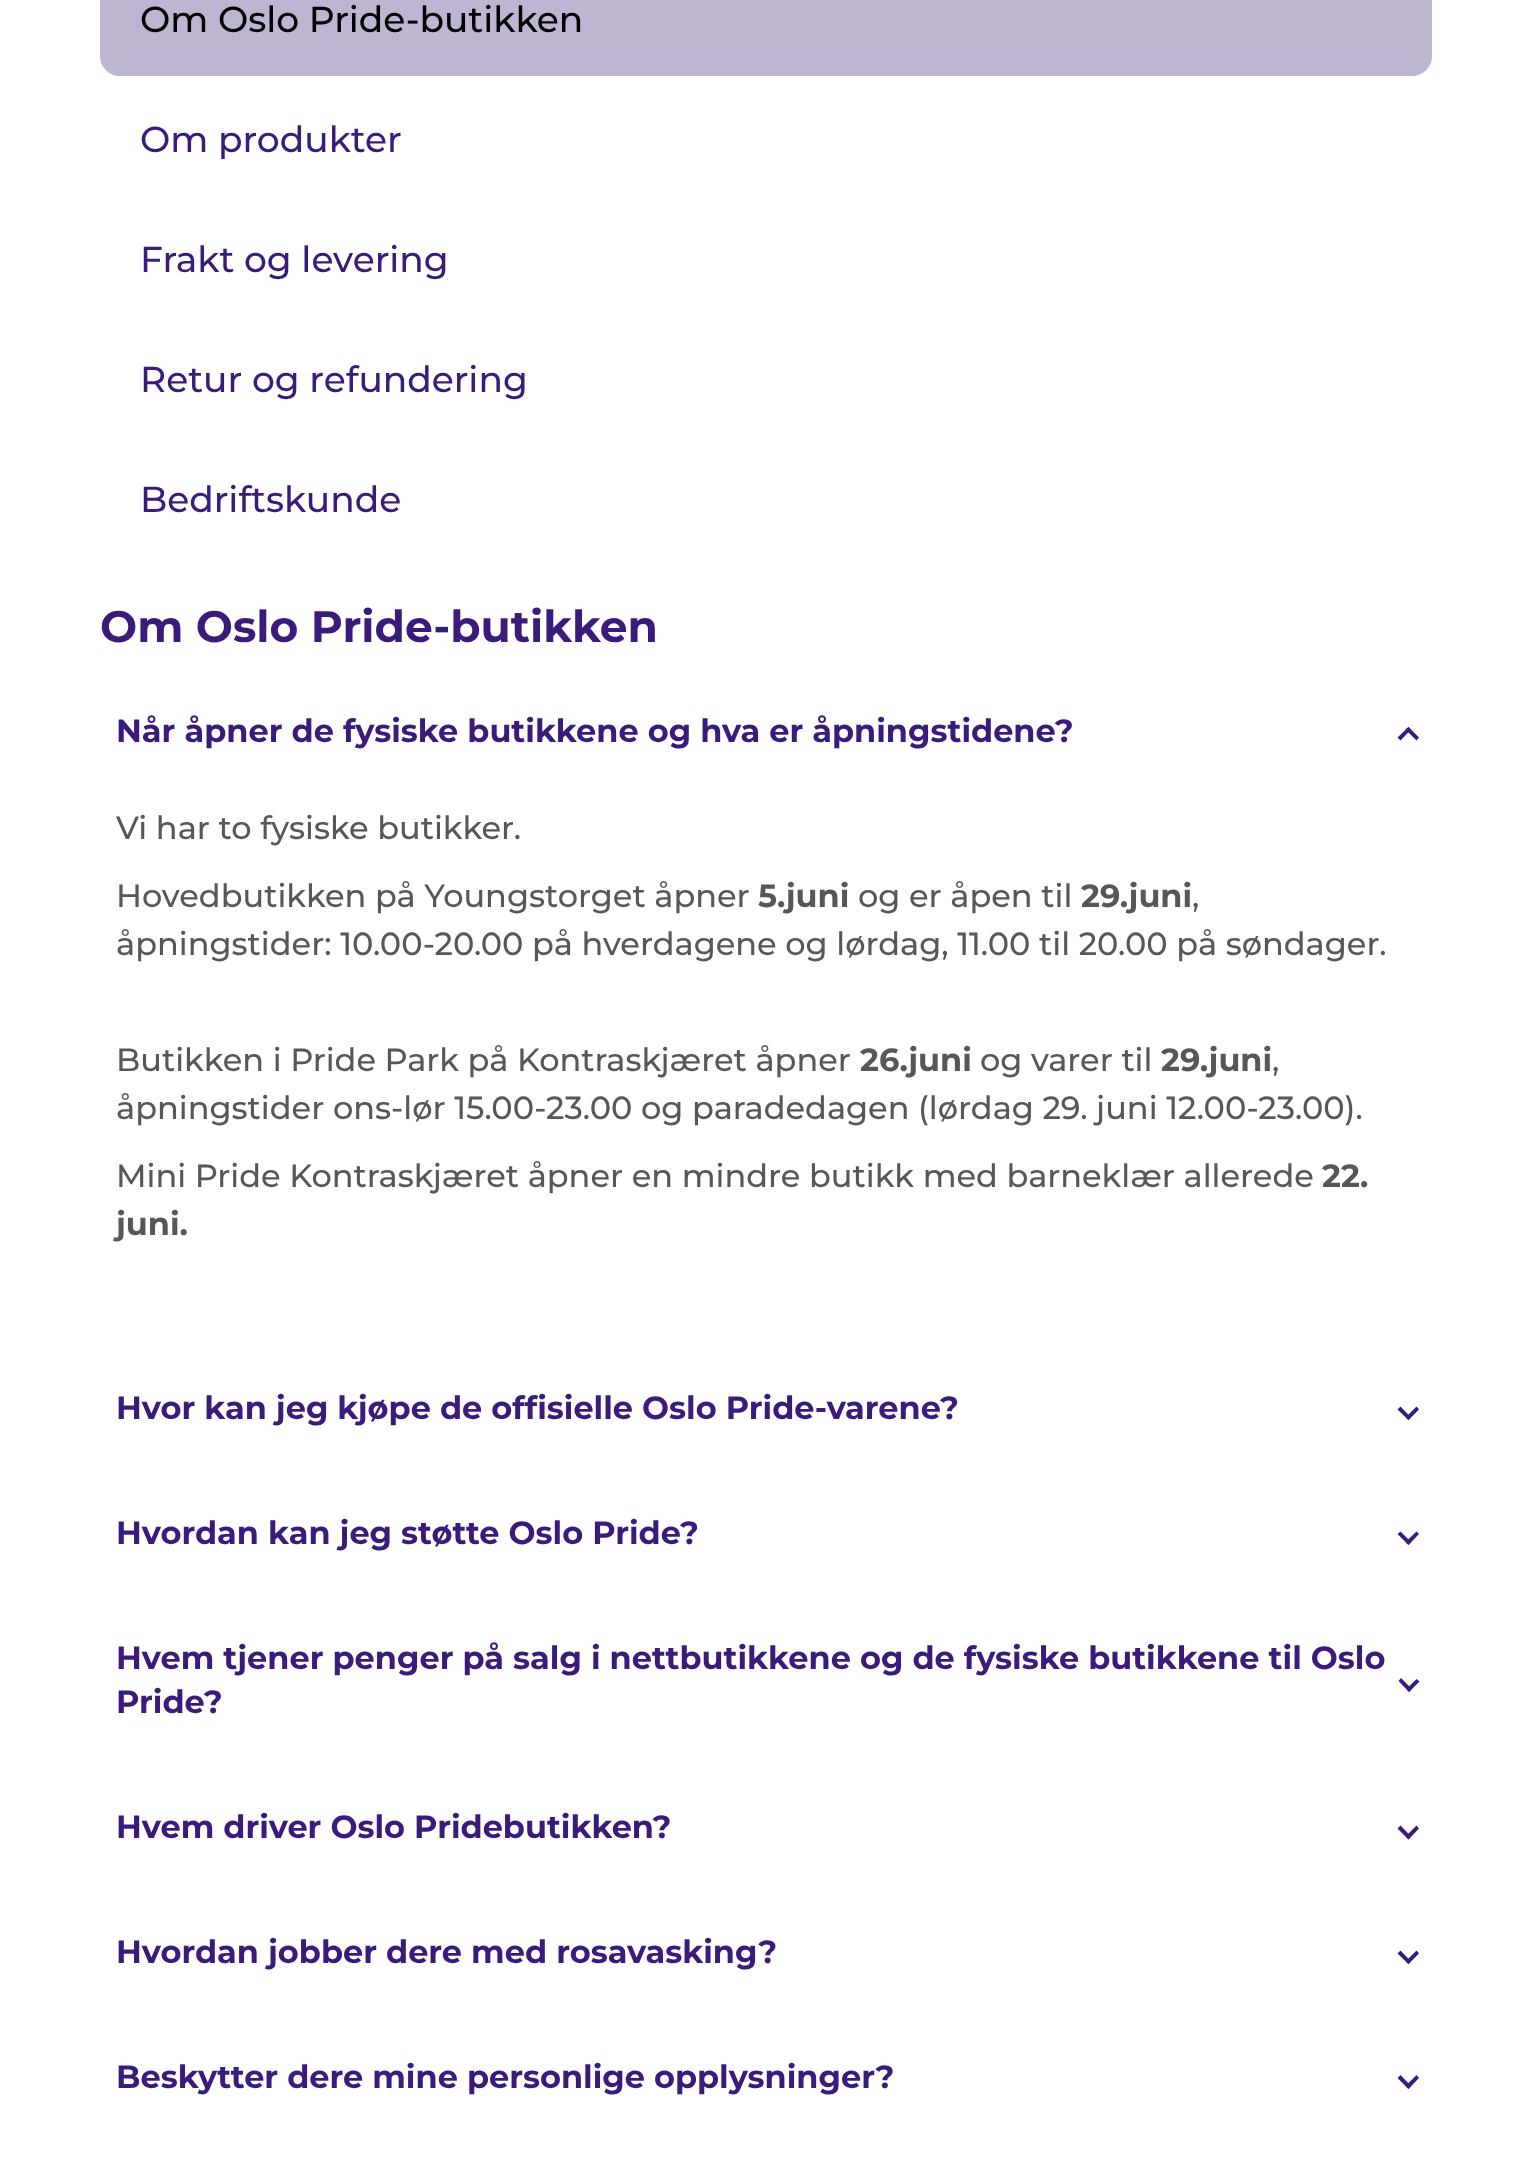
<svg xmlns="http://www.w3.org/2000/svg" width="1532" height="2158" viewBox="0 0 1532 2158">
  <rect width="100%" height="100%" fill="#fff"/>
  <rect x="100" y="-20" width="1332" height="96" rx="20" fill="#bdb5d1"/>
  <path d="M1397.5 737.5L1408.5 727L1411 729.5L1400.5 740.5Z" fill="#3a1b7b"/>
  <path d="M1405.5 729.5L1408.5 727L1419 737.5L1416.5 740.5Z" fill="#3a1b7b"/>
  <path d="M1419 1409.5L1408.5 1420L1405.5 1417.5L1416.5 1406.5Z" fill="#3a1b7b"/>
  <path d="M1411 1417.5L1408.5 1420L1397.5 1409.5L1400.5 1406.5Z" fill="#3a1b7b"/>
  <path d="M1419 1534L1408.5 1545L1405.5 1542L1416.5 1531.5Z" fill="#3a1b7b"/>
  <path d="M1411 1542L1408.5 1545L1397.5 1534L1400.5 1531.5Z" fill="#3a1b7b"/>
  <path d="M1419.5 1681.5L1409 1692L1406.5 1689L1416.5 1679Z" fill="#3a1b7b"/>
  <path d="M1412 1689L1409 1692L1398.5 1681L1401 1678Z" fill="#3a1b7b"/>
  <path d="M1419 1828.5L1408.5 1839.5L1405.5 1836.5L1416.5 1825.5Z" fill="#3a1b7b"/>
  <path d="M1411 1836.5L1408.5 1839.5L1397.5 1828.5L1400.5 1825.5Z" fill="#3a1b7b"/>
  <path d="M1419 1953.5L1408.5 1964L1405.5 1961.5L1416.5 1950.5Z" fill="#3a1b7b"/>
  <path d="M1411 1961.5L1408.5 1964L1397.5 1953.5L1400.5 1950.5Z" fill="#3a1b7b"/>
  <path d="M1419 2078L1408.5 2089L1405.5 2086L1416.5 2075Z" fill="#3a1b7b"/>
  <path d="M1411 2086L1408.5 2089L1397.5 2078L1400.5 2075Z" fill="#3a1b7b"/>
  <text x="140" y="32" font-family="Montserrat" font-size="36" font-weight="500" fill="#000">Om Oslo Pride-butikken</text>
  <g font-family="Montserrat" font-size="36" font-weight="500" fill="#3a1b7b">
    <text x="140" y="152">Om produkter</text>
    <text x="140" y="272">Frakt og levering</text>
    <text x="140" y="392">Retur og refundering</text>
    <text x="140" y="512">Bedriftskunde</text>
  </g>
  <text x="100" y="642" font-family="Montserrat" font-size="44" font-weight="bold" fill="#3a1b7b">Om Oslo Pride-butikken</text>
  <text x="116" y="742" font-family="Montserrat" font-size="32" font-weight="bold" fill="#3a1b7b">Når åpner de fysiske butikkene og hva er åpningstidene?</text>
  <g font-family="Montserrat" font-size="32" font-weight="500" fill="#575757">
    <text x="116" y="839">Vi har to fysiske butikker.</text>
    <text x="116" y="907">Hovedbutikken på Youngstorget åpner</text>
  </g>
  <text x="758" y="907" font-family="Montserrat" font-size="32" font-weight="bold" fill="#575757">5.juni</text>
  <text x="858" y="907" font-family="Montserrat" font-size="32" font-weight="500" fill="#575757">og er åpen til</text>
  <text x="1081" y="907" font-family="Montserrat" font-size="32" font-weight="bold" fill="#575757">29.juni</text>
  <g font-family="Montserrat" font-size="32" font-weight="500" fill="#575757">
    <text x="1192" y="907">,</text>
    <text x="116" y="955">åpningstider: 10.00-20.00 på hverdagene og lørdag, 11.00 til 20.00 på søndager.</text>
    <text x="116" y="1071">Butikken i Pride Park på Kontraskjæret åpner</text>
  </g>
  <text x="860" y="1071" font-family="Montserrat" font-size="32" font-weight="bold" fill="#575757">26.juni</text>
  <text x="980" y="1071" font-family="Montserrat" font-size="32" font-weight="500" fill="#575757">og varer til</text>
  <text x="1161" y="1071" font-family="Montserrat" font-size="32" font-weight="bold" fill="#575757">29.juni</text>
  <g font-family="Montserrat" font-size="32" font-weight="500" fill="#575757">
    <text x="1272" y="1071">,</text>
    <text x="116" y="1119">åpningstider ons-lør 15.00-23.00 og paradedagen (lørdag 29. juni 12.00-23.00).</text>
    <text x="116" y="1187">Mini Pride Kontraskjæret åpner en mindre butikk med barneklær allerede</text>
  </g>
  <g font-family="Montserrat" font-size="32" font-weight="bold" fill="#575757">
    <text x="1322" y="1187">22.</text>
    <text x="116" y="1235">juni.</text>
  </g>
  <g font-family="Montserrat" font-size="32" font-weight="bold" fill="#3a1b7b">
    <text x="116" y="1419">Hvor kan jeg kjøpe de offisielle Oslo Pride-varene?</text>
    <text x="116" y="1544">Hvordan kan jeg støtte Oslo Pride?</text>
    <text x="116" y="1669">Hvem tjener penger på salg i nettbutikkene og de fysiske butikkene til Oslo</text>
    <text x="116" y="1713">Pride?</text>
    <text x="116" y="1838">Hvem driver Oslo Pridebutikken?</text>
    <text x="116" y="1963">Hvordan jobber dere med rosavasking?</text>
    <text x="116" y="2088">Beskytter dere mine personlige opplysninger?</text>
  </g>
</svg>
